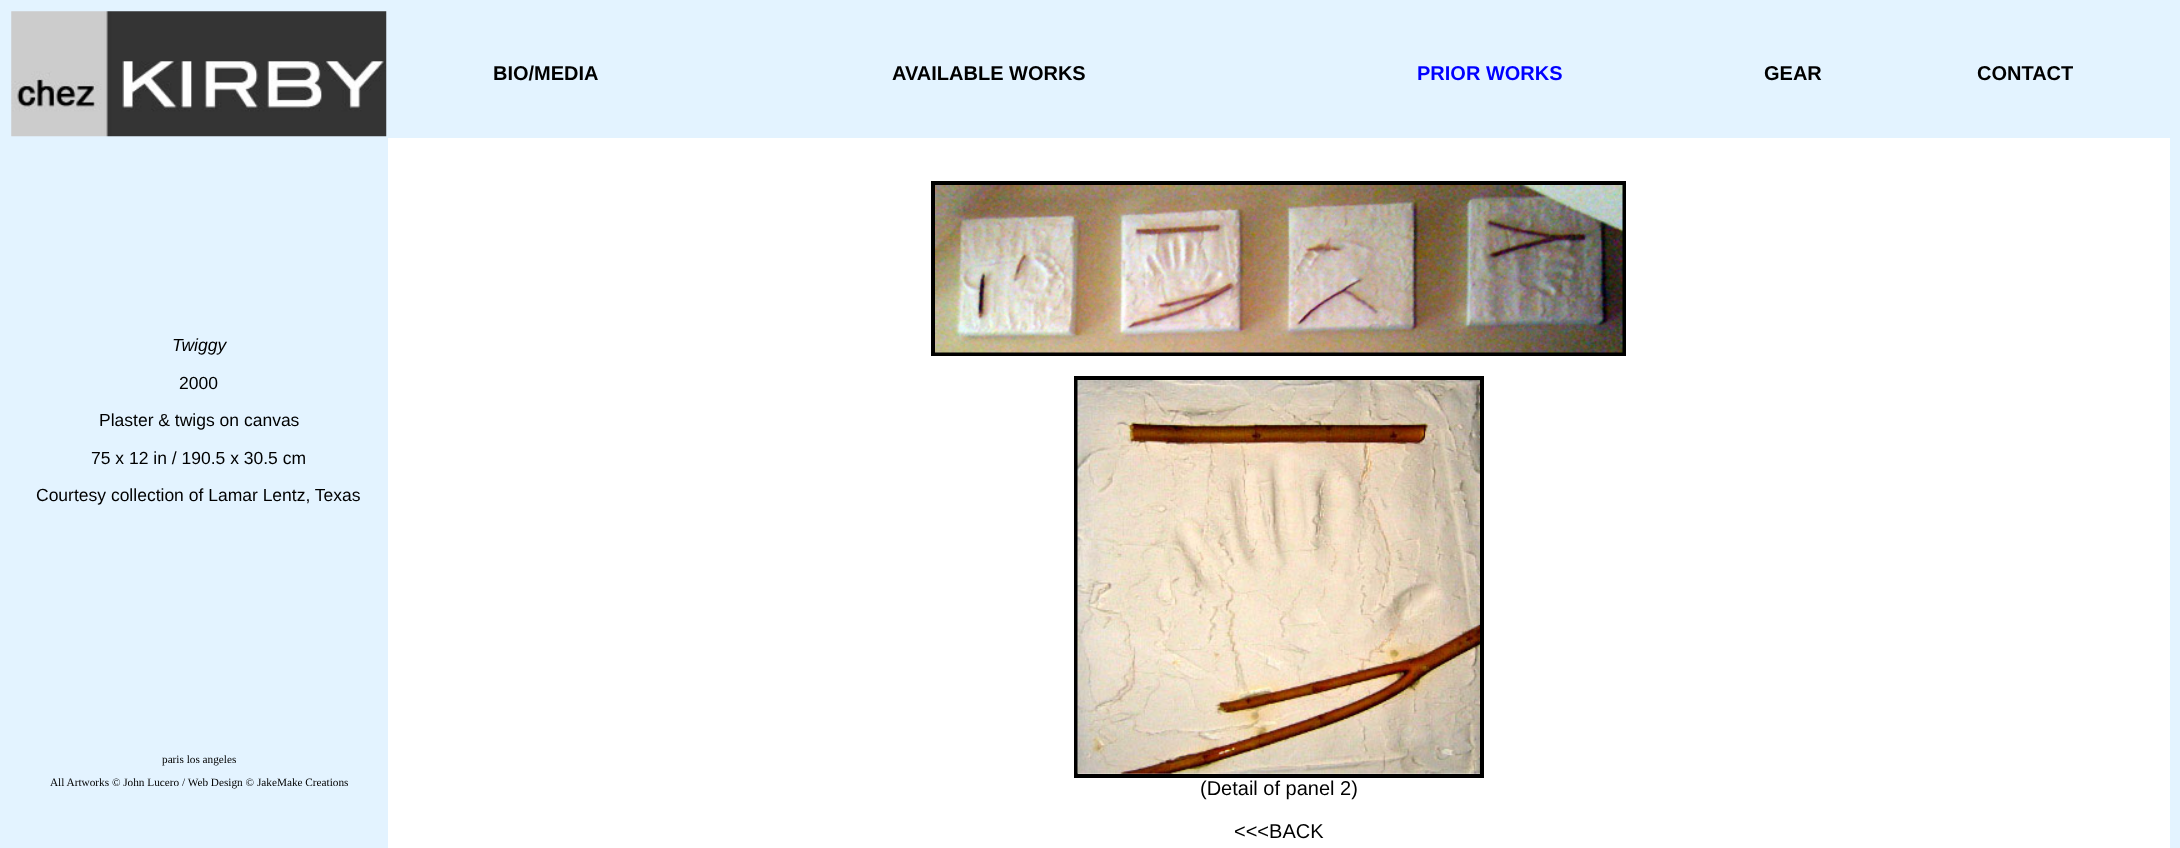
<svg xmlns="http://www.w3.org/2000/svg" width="2180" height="848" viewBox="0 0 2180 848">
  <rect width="100%" height="100%" fill="#e3f3ff"/>
  <image x="11" y="11" width="376" height="126" href="img/1.png"/>
  <path d="M388 138h1782v710H388z" fill="#fff"/>
  <path d="M933 183h691v171H933z" fill="none" stroke="#000" stroke-width="4"/>
  <image x="935" y="185" width="688" height="168" href="img/2.png"/>
  <path d="M1076 378h406v398H1076z" fill="none" stroke="#000" stroke-width="4"/>
  <image x="1077" y="380" width="403" height="394" href="img/3.png"/>
  <g font-family="Liberation Sans" font-size="20" font-weight="bold" fill="#000">
    <text x="493" y="80">BIO/MEDIA</text>
    <text x="892" y="80">AVAILABLE WORKS</text>
  </g>
  <text x="1417" y="80" font-family="Liberation Sans" font-size="20" font-weight="bold" fill="#00f">PRIOR WORKS</text>
  <g font-family="Liberation Sans" font-size="20" font-weight="bold" fill="#000">
    <text x="1764" y="80">GEAR</text>
    <text x="1977" y="80">CONTACT</text>
  </g>
  <text x="172" y="351" font-family="Liberation Sans" font-size="17.5" font-style="italic" fill="#000">Twiggy</text>
  <g font-family="Liberation Sans" font-size="17.5" fill="#000">
    <text x="179" y="389">2000</text>
    <text x="99" y="426">Plaster &amp; twigs on canvas</text>
    <text x="91" y="464">75 x 12 in / 190.5 x 30.5 cm</text>
    <text x="36" y="501">Courtesy collection of Lamar Lentz, Texas</text>
  </g>
  <g font-family="Liberation Serif" font-size="11.25" fill="#000">
    <text x="162" y="763">paris los angeles</text>
    <text x="50" y="786">All Artworks © John Lucero / Web Design © JakeMake Creations</text>
  </g>
  <g font-family="Liberation Sans" font-size="20" fill="#000">
    <text x="1200" y="795">(Detail of panel 2)</text>
    <text x="1234" y="838">&lt;&lt;&lt;BACK</text>
  </g>
</svg>
